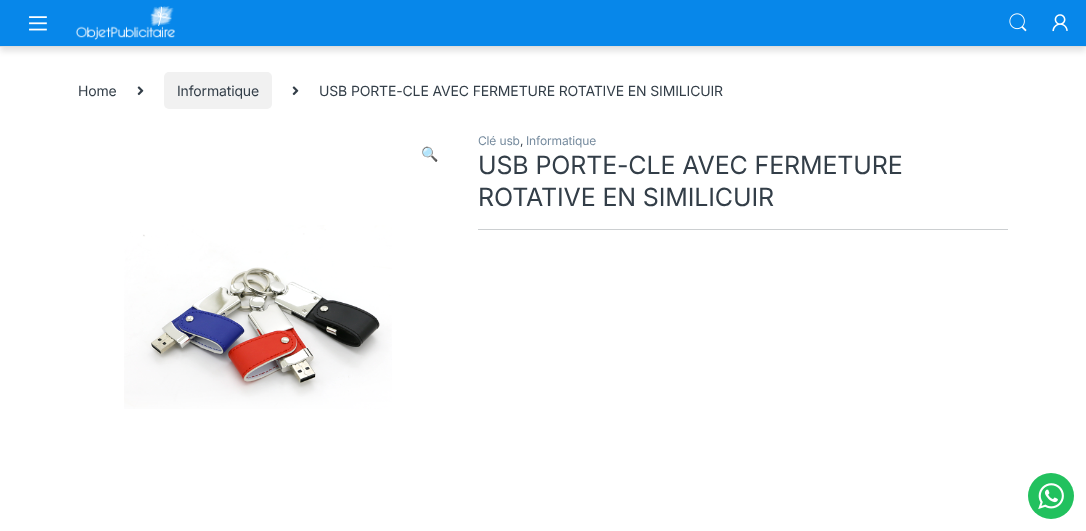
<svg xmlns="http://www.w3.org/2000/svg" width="1086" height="531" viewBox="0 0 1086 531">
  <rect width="100%" height="100%" fill="#fff"/>
  <path d="M0 4h1086v47H0z" fill="#0000001f" filter="blur(3px)"/>
  <path d="M0 46h1086v1H0z" fill="#ddd"/>
  <path d="M0 0h1086v46H0z" fill="#0787ea"/>
  <image x="29" y="16" width="18" height="15" href="img/1.png"/>
  <image x="76" y="6" width="99" height="34" href="img/2.png"/>
  <image x="1009" y="13" width="18" height="19" href="img/3.png"/>
  <image x="1052" y="14" width="16" height="18" href="img/4.png"/>
  <image x="137" y="86" width="7" height="10" href="img/5.png"/>
  <rect x="164" y="72" width="108" height="37" rx="5" fill="#f1f1f1"/>
  <image x="292" y="86" width="7" height="10" href="img/5.png"/>
  <image x="124" y="225" width="268" height="184" href="img/6.png"/>
  <path d="M478 229h530v1H478z" fill="#cccfd1"/>
  <circle cx="1051" cy="496" r="23" fill="#22c15e"/>
  <image x="1038" y="483" width="26" height="26" href="img/7.png"/>
  <g font-family="Inter" font-size="14" letter-spacing="-0.15" fill="#333e48">
    <text x="78" y="96">Home</text>
    <text x="177" y="96">Informatique</text>
    <text x="319" y="96">USB PORTE-CLE AVEC FERMETURE ROTATIVE EN SIMILICUIR</text>
  </g>
  <text x="421" y="159" font-family="Noto Color Emoji" font-size="14" letter-spacing="-0.15" fill="#333e48">🔍</text>
  <text x="478" y="145" font-family="Inter" font-size="12" letter-spacing="-0.15" fill="#768b9e">Clé usb</text>
  <text x="520" y="145" font-family="Inter" font-size="12" letter-spacing="-0.15" fill="#333e48">,</text>
  <text x="526" y="145" font-family="Inter" font-size="12" letter-spacing="-0.15" fill="#768b9e">Informatique</text>
  <g font-family="Inter" font-size="25" letter-spacing="-0.15" fill="#333e48">
    <text x="478" y="174">USB PORTE-CLE AVEC FERMETURE</text>
    <text x="478" y="206">ROTATIVE EN SIMILICUIR</text>
  </g>
</svg>
